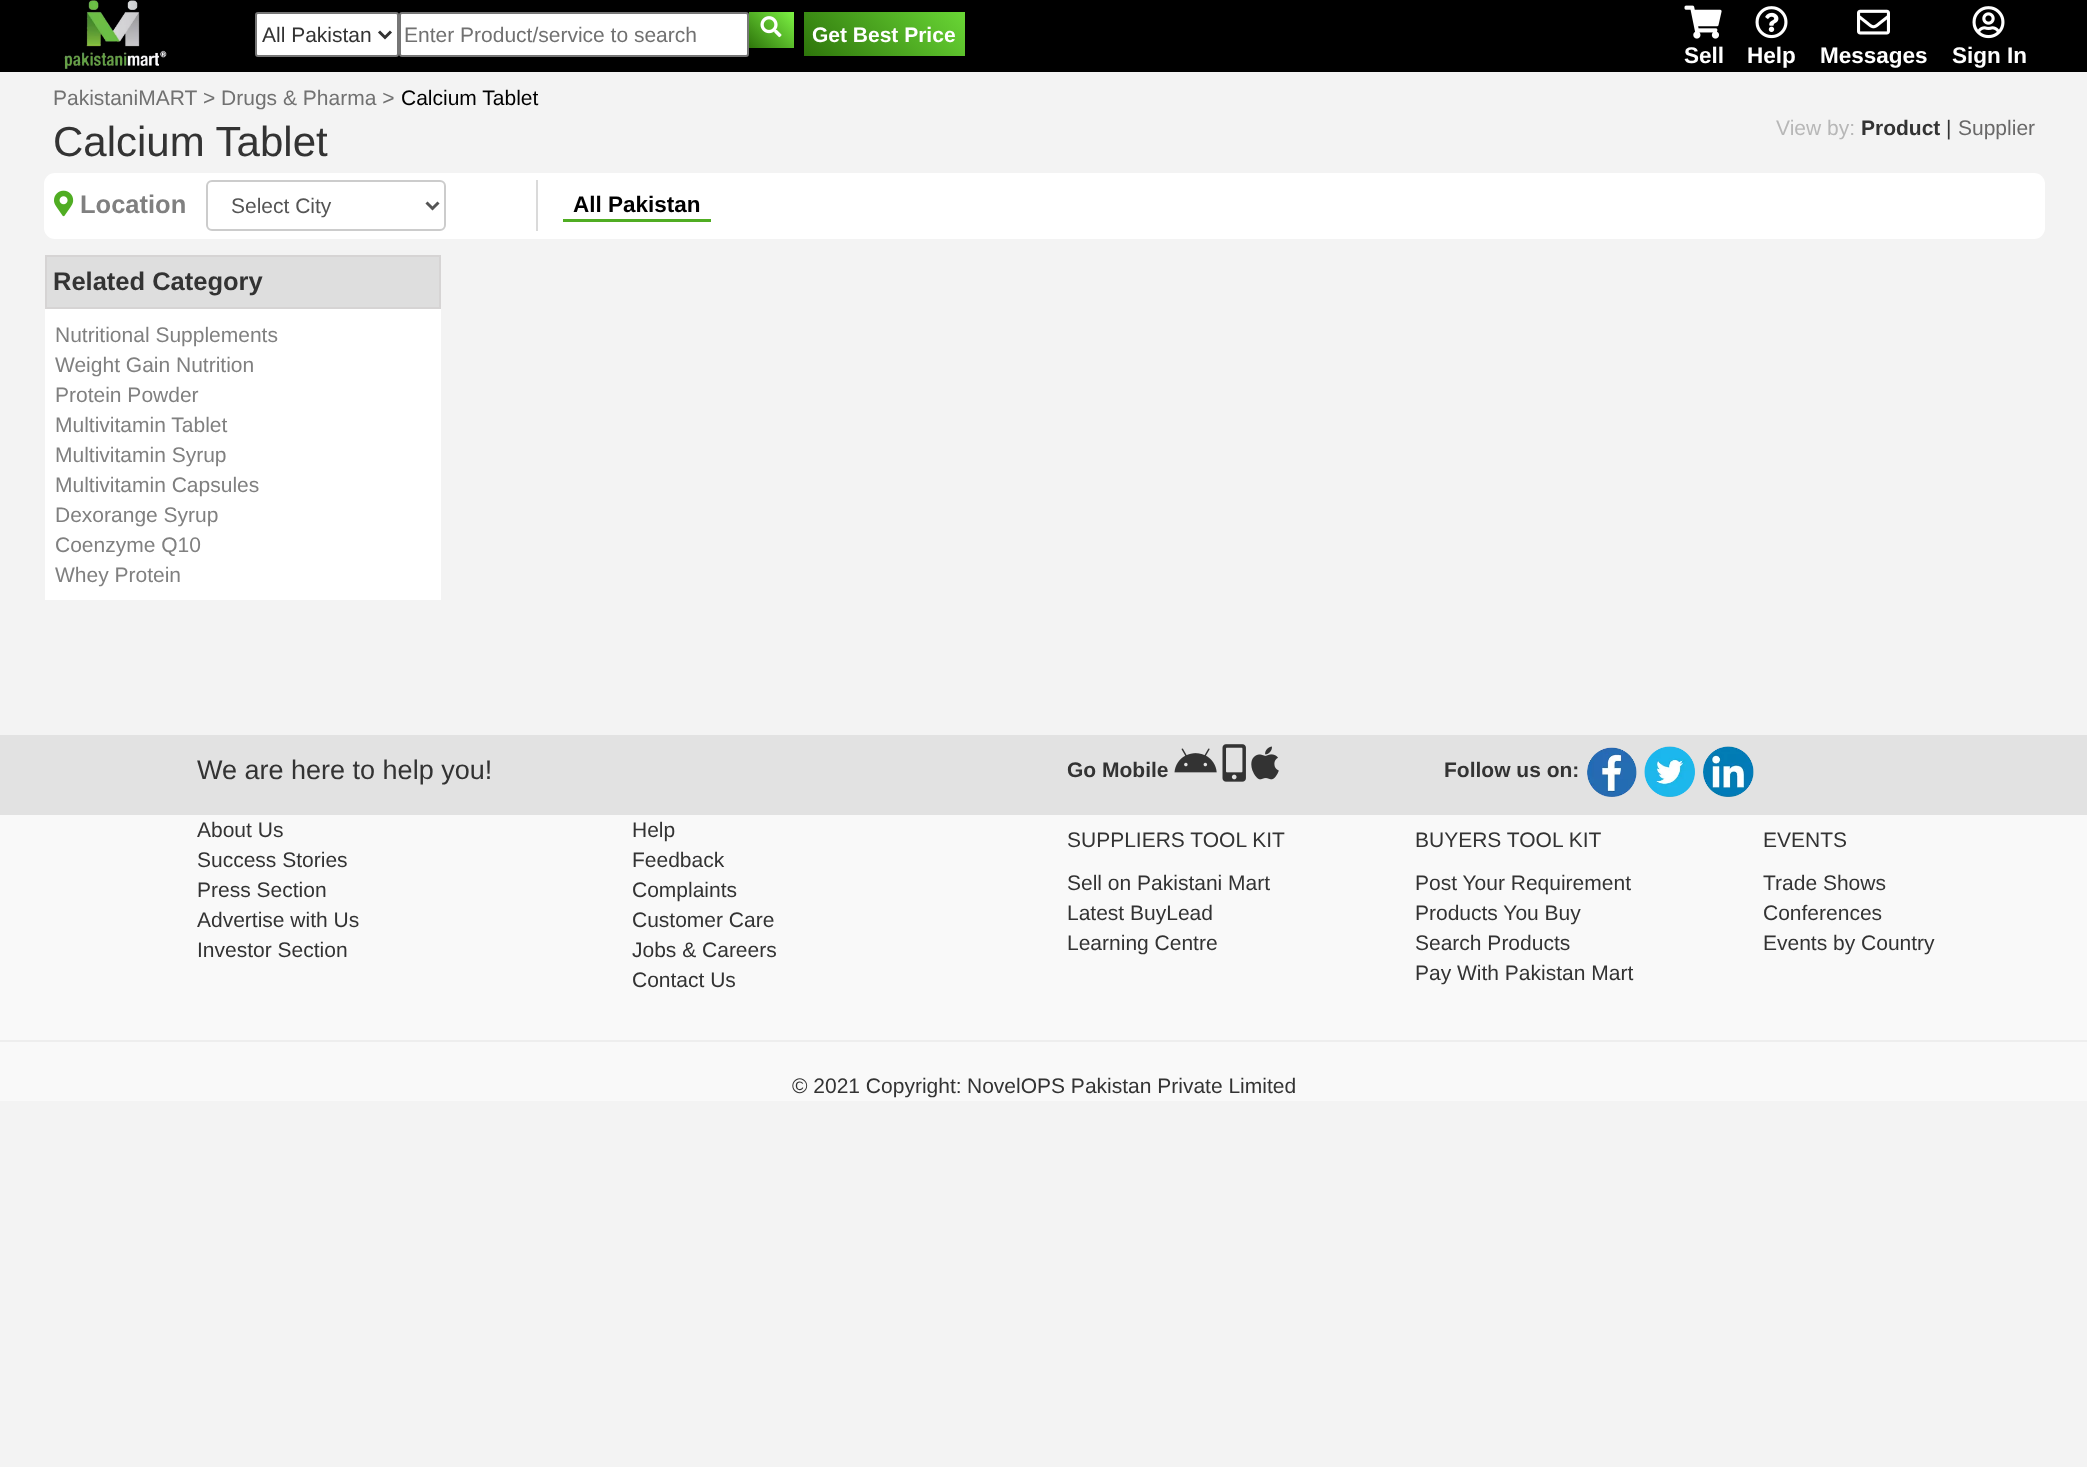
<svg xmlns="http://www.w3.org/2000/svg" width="2087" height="1467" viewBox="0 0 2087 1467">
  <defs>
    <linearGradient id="g1" gradientUnits="userSpaceOnUse" x1="751" y1="50" x2="791" y2="10"><stop offset="0" stop-color="#2e750b"/><stop offset="1" stop-color="#7cf143"/></linearGradient>
    <linearGradient id="g2" gradientUnits="userSpaceOnUse" x1="833" y1="85" x2="935" y2="-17"><stop offset="0" stop-color="#2e750b"/><stop offset="1" stop-color="#69d635"/></linearGradient>
  </defs>
  <rect width="100%" height="100%" fill="#f3f3f3"/>
  <path d="M0 0h2087v72H0z" fill="#000"/>
  <image x="64" y="0" width="103" height="69" href="img/1.png"/>
  <rect x="256" y="13" width="142" height="43" rx="2" fill="#fff" stroke="#767676" stroke-width="2"/>
  <path d="M379 31.5L385 37.5L391 31.5" fill="none" stroke="#333" stroke-width="3"/>
  <rect x="400" y="13" width="348" height="43" rx="2" fill="#fff" stroke="#767676" stroke-width="2"/>
  <path d="M749 12h45v36H749z" fill="url(#g1)"/>
  <image x="760" y="16" width="22" height="22" href="img/2.png"/>
  <path d="M804 12h161v44H804z" fill="url(#g2)"/>
  <image x="1684" y="5" width="38" height="34" href="img/3.png"/>
  <image x="1755" y="6" width="33" height="33" href="img/4.png"/>
  <image x="1857" y="9" width="33" height="26" href="img/5.png"/>
  <image x="1972" y="6" width="33" height="33" href="img/6.png"/>
  <rect x="44" y="173" width="2001" height="66" rx="11" fill="#fff"/>
  <path d="M536 180h2v51H536z" fill="#dadada"/>
  <image x="54" y="190" width="20" height="27" href="img/7.png"/>
  <rect x="207" y="181" width="238" height="49" rx="5" fill="none" stroke="#ccc" stroke-width="2"/>
  <path d="M426.5 202.5L432.5 208.5L438.5 202.5" fill="none" stroke="#555" stroke-width="3"/>
  <path d="M563 219h148v3H563z" fill="#50ad23"/>
  <path d="M45 309h396v291H45z" fill="#fff"/>
  <path d="M46 256h394v52H46z" fill="#dedede" stroke="#d6d4d4" stroke-width="2"/>
  <path d="M0 815h2087v286H0z" fill="#f9f9f9"/>
  <path d="M0 735h2087v80H0z" fill="#e2e2e2"/>
  <image x="1174" y="748" width="43" height="25" href="img/8.png"/>
  <image x="1222" y="744" width="24" height="38" href="img/9.png"/>
  <image x="1251" y="746" width="28" height="34" href="img/10.png"/>
  <image x="1587" y="747" width="50" height="50" href="img/11.png"/>
  <image x="1644" y="746" width="51" height="51" href="img/12.png"/>
  <image x="1703" y="746" width="51" height="51" href="img/13.png"/>
  <path d="M0 1040h2087v2H0z" fill="#eee"/>
  <text x="262" y="42" font-family="Liberation Sans" font-size="21" fill="#333">All Pakistan</text>
  <text x="404" y="42" font-family="Liberation Sans" font-size="21" fill="#717171">Enter Product/service to search</text>
  <text x="812" y="42" font-family="Liberation Sans" font-size="21" font-weight="bold" fill="#fff">Get Best Price</text>
  <g font-family="Liberation Sans" font-size="22.5" font-weight="bold" fill="#fff">
    <text x="1684" y="63">Sell</text>
    <text x="1747" y="63">Help</text>
    <text x="1820" y="63">Messages</text>
    <text x="1952" y="63">Sign In</text>
  </g>
  <g font-family="Liberation Sans" font-size="21" fill="#717171">
    <text x="53" y="105">PakistaniMART</text>
    <text x="203" y="105">&gt; Drugs &amp; Pharma &gt;</text>
  </g>
  <text x="401" y="105" font-family="Liberation Sans" font-size="21" fill="#000">Calcium Tablet</text>
  <text x="53" y="156" font-family="Liberation Sans" font-size="42" fill="#333">Calcium Tablet</text>
  <text x="1776" y="135" font-family="Liberation Sans" font-size="21" fill="#b7b7b7">View by:</text>
  <text x="1861" y="135" font-family="Liberation Sans" font-size="21" font-weight="bold" fill="#333">Product</text>
  <text x="1946" y="135" font-family="Liberation Sans" font-size="21" fill="#333">|</text>
  <text x="1958" y="135" font-family="Liberation Sans" font-size="21" fill="#696868">Supplier</text>
  <text x="80" y="213" font-family="Liberation Sans" font-size="25.5" font-weight="bold" fill="#808080">Location</text>
  <text x="231" y="213" font-family="Liberation Sans" font-size="21" fill="#555">Select City</text>
  <text x="573" y="212" font-family="Liberation Sans" font-size="22.5" font-weight="bold" fill="#000">All Pakistan</text>
  <text x="53" y="290" font-family="Liberation Sans" font-size="25.5" font-weight="bold" fill="#333">Related Category</text>
  <g font-family="Liberation Sans" font-size="21" fill="#808080">
    <text x="55" y="342">Nutritional Supplements</text>
    <text x="55" y="372">Weight Gain Nutrition</text>
    <text x="55" y="402">Protein Powder</text>
    <text x="55" y="432">Multivitamin Tablet</text>
    <text x="55" y="462">Multivitamin Syrup</text>
    <text x="55" y="492">Multivitamin Capsules</text>
    <text x="55" y="522">Dexorange Syrup</text>
    <text x="55" y="552">Coenzyme Q10</text>
    <text x="55" y="582">Whey Protein</text>
  </g>
  <text x="197" y="779" font-family="Liberation Sans" font-size="27" fill="#333">We are here to help you!</text>
  <g font-family="Liberation Sans" font-size="21" font-weight="bold" fill="#333">
    <text x="1067" y="777">Go Mobile</text>
    <text x="1444" y="777">Follow us on:</text>
  </g>
  <g font-family="Liberation Sans" font-size="21" fill="#333">
    <text x="197" y="837">About Us</text>
    <text x="197" y="867">Success Stories</text>
    <text x="197" y="897">Press Section</text>
    <text x="197" y="927">Advertise with Us</text>
    <text x="197" y="957">Investor Section</text>
    <text x="632" y="837">Help</text>
    <text x="632" y="867">Feedback</text>
    <text x="632" y="897">Complaints</text>
    <text x="632" y="927">Customer Care</text>
    <text x="632" y="957">Jobs &amp; Careers</text>
    <text x="632" y="987">Contact Us</text>
    <text x="1067" y="847">SUPPLIERS TOOL KIT</text>
    <text x="1067" y="890">Sell on Pakistani Mart</text>
    <text x="1067" y="920">Latest BuyLead</text>
    <text x="1067" y="950">Learning Centre</text>
    <text x="1415" y="847">BUYERS TOOL KIT</text>
    <text x="1415" y="890">Post Your Requirement</text>
    <text x="1415" y="920">Products You Buy</text>
    <text x="1415" y="950">Search Products</text>
    <text x="1415" y="980">Pay With Pakistan Mart</text>
    <text x="1763" y="847">EVENTS</text>
    <text x="1763" y="890">Trade Shows</text>
    <text x="1763" y="920">Conferences</text>
    <text x="1763" y="950">Events by Country</text>
    <text x="792" y="1093">© 2021 Copyright:</text>
    <text x="967" y="1093">NovelOPS Pakistan Private Limited</text>
  </g>
</svg>
